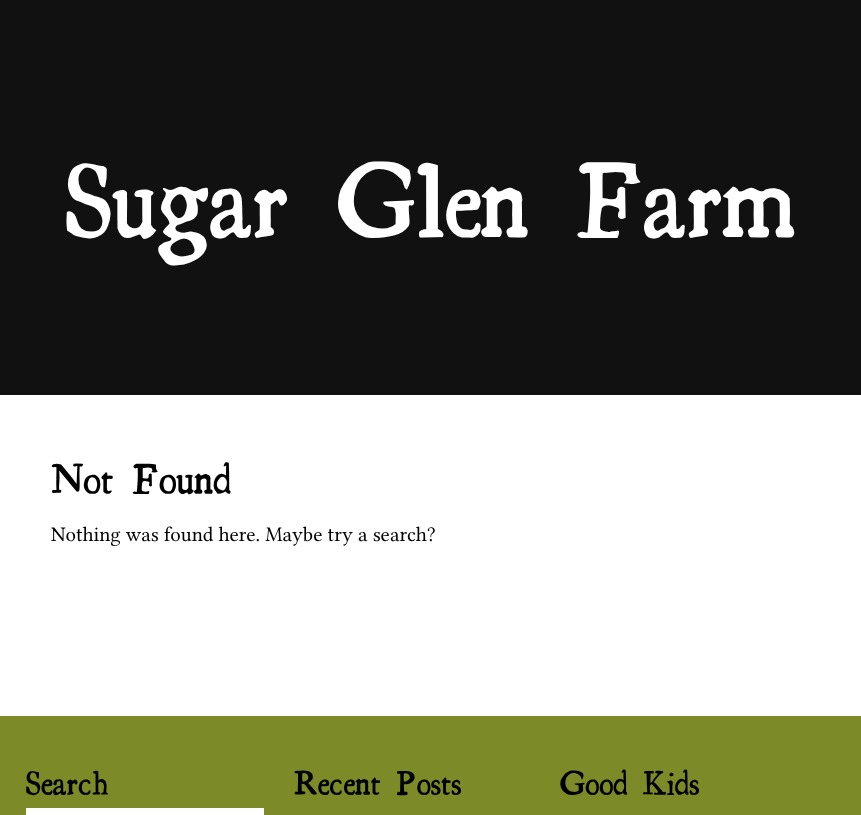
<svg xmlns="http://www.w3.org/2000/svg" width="861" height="815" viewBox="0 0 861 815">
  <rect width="100%" height="100%" fill="#fff"/>
  <path d="M0 0h861v395H0z" fill="#111"/>
  <path d="M0 716h861v99H0z" fill="#7c8b27"/>
  <path d="M26 808h238v7H26z" fill="#fff"/>
  <text x="66" y="238" font-family="'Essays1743'" font-size="104" font-weight="500" fill="#fff">Sugar Glen Farm</text>
  <text x="51" y="494" font-family="'Essays1743'" font-size="41.5" font-weight="500" fill="#000">Not Found</text>
  <text x="51" y="541" font-family="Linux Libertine" font-size="20.75" fill="#000">Nothing was found here. Maybe try a search?</text>
  <g font-family="'Essays1743'" font-size="33.25" font-weight="500" fill="#000">
    <text x="26" y="795">Search</text>
    <text x="293" y="795">Recent Posts</text>
    <text x="560" y="795">Good Kids</text>
  </g>
</svg>
